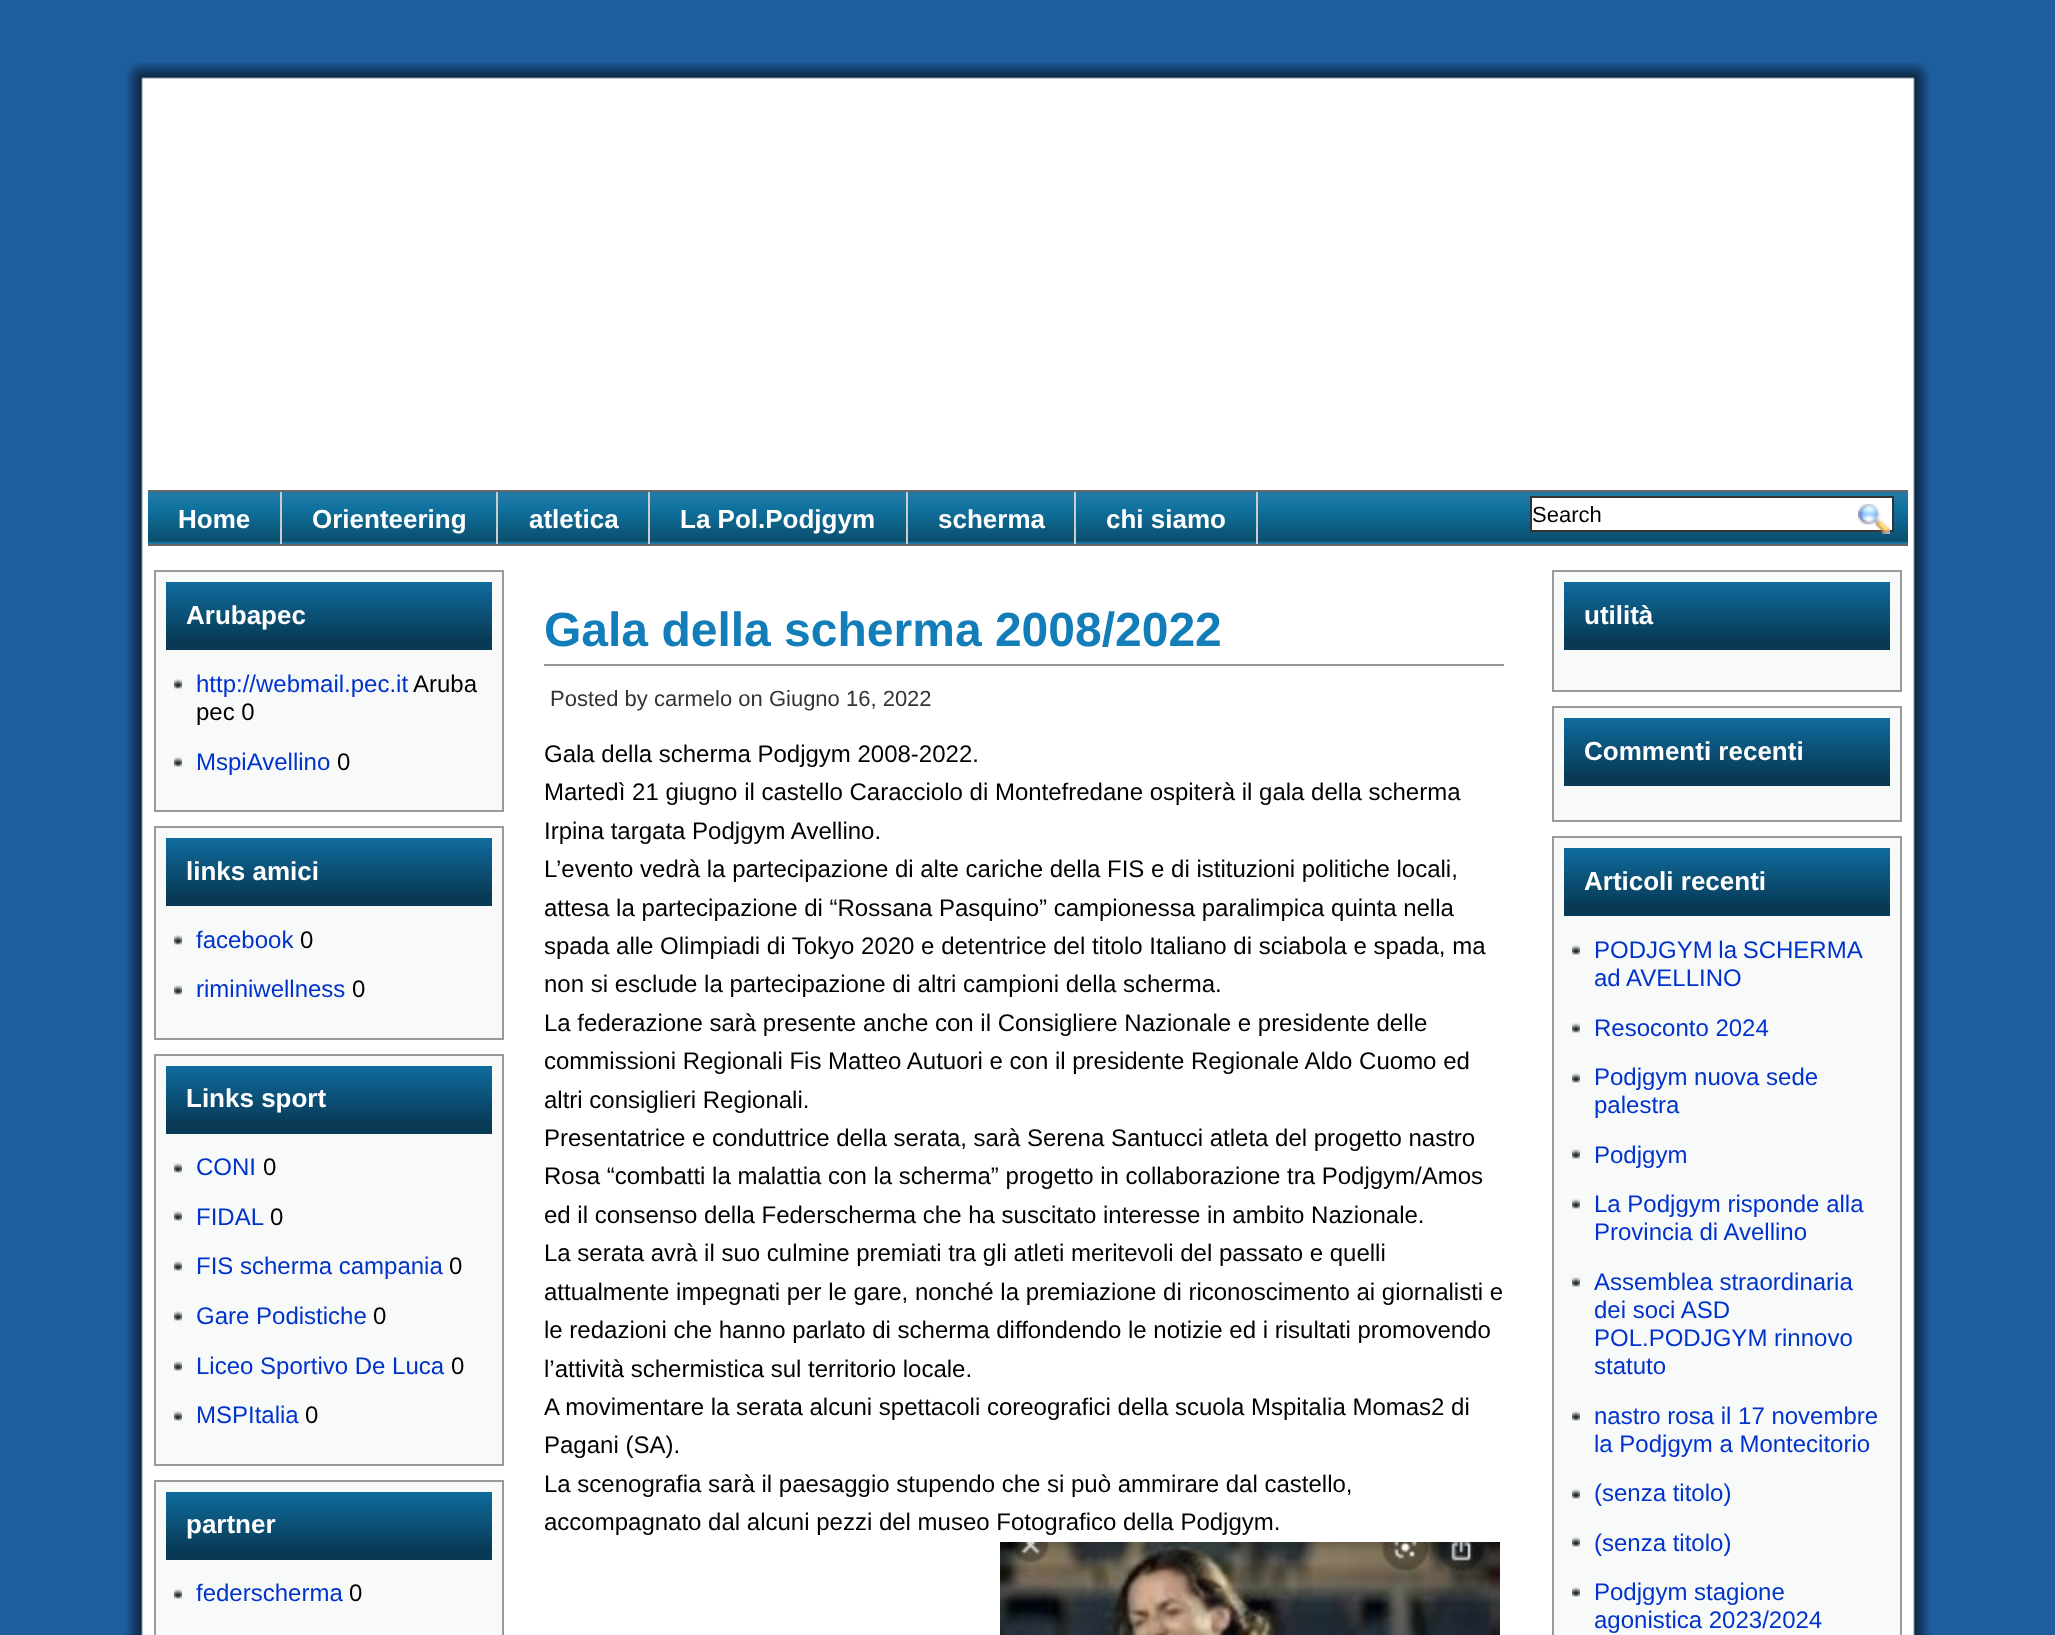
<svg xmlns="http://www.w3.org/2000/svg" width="2055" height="1635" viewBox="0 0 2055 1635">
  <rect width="100%" height="100%" fill="#1e5e9e"/>
  <image x="126" y="62" width="1804" height="22" href="img/1.png"/>
  <image x="126" y="84" width="1804" height="1551" href="img/2.png"/>
  <image x="148" y="492" width="1760" height="52" href="img/3.png"/>
  <path d="M148 490h1760v2H148z" fill="#666"/>
  <path d="M148 544h1760v2H148z" fill="#666"/>
  <path d="M280 492h2v52H280z" fill="#ccc"/>
  <path d="M496 492h2v52H496z" fill="#ccc"/>
  <path d="M648 492h2v52H648z" fill="#ccc"/>
  <path d="M906 492h2v52H906z" fill="#ccc"/>
  <path d="M1074 492h2v52H1074z" fill="#ccc"/>
  <path d="M1256 492h2v52H1256z" fill="#ccc"/>
  <path d="M1531 497h362v34H1531z" fill="#fff" stroke="#333" stroke-width="2"/>
  <image x="1858" y="504" width="32" height="30" href="img/4.png"/>
  <path d="M155 571h348v240H155z" fill="#f8f9f9" stroke="#999" stroke-width="2"/>
  <path d="M166 637h326v13H166z" fill="#083a56"/>
  <image x="166" y="582" width="326" height="55" href="img/5.png"/>
  <image x="174" y="679" width="8" height="10" href="img/6.png"/>
  <image x="174" y="757" width="8" height="10" href="img/6.png"/>
  <path d="M155 827h348v212H155z" fill="#f8f9f9" stroke="#999" stroke-width="2"/>
  <path d="M166 893h326v13H166z" fill="#083a56"/>
  <image x="166" y="838" width="326" height="55" href="img/5.png"/>
  <image x="174" y="935" width="8" height="10" href="img/6.png"/>
  <image x="174" y="985" width="8" height="10" href="img/6.png"/>
  <path d="M155 1055h348v410H155z" fill="#f8f9f9" stroke="#999" stroke-width="2"/>
  <path d="M166 1121h326v13H166z" fill="#083a56"/>
  <image x="166" y="1066" width="326" height="55" href="img/5.png"/>
  <image x="174" y="1163" width="8" height="10" href="img/6.png"/>
  <image x="174" y="1211" width="8" height="10" href="img/6.png"/>
  <image x="174" y="1261" width="8" height="10" href="img/6.png"/>
  <image x="174" y="1311" width="8" height="10" href="img/6.png"/>
  <image x="174" y="1361" width="8" height="10" href="img/6.png"/>
  <image x="174" y="1411" width="8" height="10" href="img/6.png"/>
  <path d="M155 1481h348v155H155z" fill="#f8f9f9" stroke="#999" stroke-width="2"/>
  <path d="M166 1547h326v13H166z" fill="#083a56"/>
  <image x="166" y="1492" width="326" height="55" href="img/5.png"/>
  <image x="174" y="1589" width="8" height="10" href="img/6.png"/>
  <path d="M544 664h960v2H544z" fill="#949494"/>
  <image x="1000" y="1542" width="500" height="93" href="img/7.png"/>
  <path d="M1553 571h348v120H1553z" fill="#f8f9f9" stroke="#999" stroke-width="2"/>
  <path d="M1564 637h326v13H1564z" fill="#083a56"/>
  <image x="1564" y="582" width="326" height="55" href="img/5.png"/>
  <path d="M1553 707h348v114H1553z" fill="#f8f9f9" stroke="#999" stroke-width="2"/>
  <path d="M1564 773h326v13H1564z" fill="#083a56"/>
  <image x="1564" y="718" width="326" height="55" href="img/5.png"/>
  <path d="M1553 837h348v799H1553z" fill="#f8f9f9" stroke="#999" stroke-width="2"/>
  <path d="M1564 903h326v13H1564z" fill="#083a56"/>
  <image x="1564" y="848" width="326" height="55" href="img/5.png"/>
  <image x="1572" y="945" width="8" height="10" href="img/6.png"/>
  <image x="1572" y="1023" width="8" height="10" href="img/6.png"/>
  <image x="1572" y="1073" width="8" height="10" href="img/6.png"/>
  <image x="1572" y="1149" width="8" height="10" href="img/6.png"/>
  <image x="1572" y="1199" width="8" height="10" href="img/6.png"/>
  <image x="1572" y="1277" width="8" height="10" href="img/6.png"/>
  <image x="1572" y="1411" width="8" height="10" href="img/6.png"/>
  <image x="1572" y="1489" width="8" height="10" href="img/6.png"/>
  <image x="1572" y="1537" width="8" height="10" href="img/6.png"/>
  <image x="1572" y="1587" width="8" height="10" href="img/6.png"/>
  <g font-family="Liberation Sans" font-size="26" font-weight="bold" fill="#fff">
    <text x="178" y="528">Home</text>
    <text x="312" y="528">Orienteering</text>
    <text x="529" y="528">atletica</text>
    <text x="680" y="528">La Pol.Podjgym</text>
    <text x="938" y="528">scherma</text>
    <text x="1106" y="528">chi siamo</text>
  </g>
  <text x="1532" y="522" font-family="Liberation Sans" font-size="22" fill="#000">Search</text>
  <text x="186" y="624" font-family="Liberation Sans" font-size="26" font-weight="bold" fill="#fff">Arubapec</text>
  <text x="196" y="692" font-family="Liberation Sans" font-size="24" fill="#03c">http://webmail.pec.it</text>
  <g font-family="Liberation Sans" font-size="24" fill="#000">
    <text x="413" y="692">Aruba</text>
    <text x="196" y="720">pec 0</text>
  </g>
  <text x="196" y="770" font-family="Liberation Sans" font-size="24" fill="#03c">MspiAvellino</text>
  <text x="337" y="770" font-family="Liberation Sans" font-size="24" fill="#000">0</text>
  <text x="186" y="880" font-family="Liberation Sans" font-size="26" font-weight="bold" fill="#fff">links amici</text>
  <text x="196" y="948" font-family="Liberation Sans" font-size="24" fill="#03c">facebook</text>
  <text x="300" y="948" font-family="Liberation Sans" font-size="24" fill="#000">0</text>
  <text x="196" y="997" font-family="Liberation Sans" font-size="24" fill="#03c">riminiwellness</text>
  <text x="352" y="997" font-family="Liberation Sans" font-size="24" fill="#000">0</text>
  <text x="186" y="1107" font-family="Liberation Sans" font-size="26" font-weight="bold" fill="#fff">Links sport</text>
  <text x="196" y="1175" font-family="Liberation Sans" font-size="24" fill="#03c">CONI</text>
  <text x="263" y="1175" font-family="Liberation Sans" font-size="24" fill="#000">0</text>
  <text x="196" y="1225" font-family="Liberation Sans" font-size="24" fill="#03c">FIDAL</text>
  <text x="270" y="1225" font-family="Liberation Sans" font-size="24" fill="#000">0</text>
  <text x="196" y="1274" font-family="Liberation Sans" font-size="24" fill="#03c">FIS scherma campania</text>
  <text x="449" y="1274" font-family="Liberation Sans" font-size="24" fill="#000">0</text>
  <text x="196" y="1324" font-family="Liberation Sans" font-size="24" fill="#03c">Gare Podistiche</text>
  <text x="373" y="1324" font-family="Liberation Sans" font-size="24" fill="#000">0</text>
  <text x="196" y="1374" font-family="Liberation Sans" font-size="24" fill="#03c">Liceo Sportivo De Luca</text>
  <text x="451" y="1374" font-family="Liberation Sans" font-size="24" fill="#000">0</text>
  <text x="196" y="1423" font-family="Liberation Sans" font-size="24" fill="#03c">MSPItalia</text>
  <text x="305" y="1423" font-family="Liberation Sans" font-size="24" fill="#000">0</text>
  <text x="186" y="1533" font-family="Liberation Sans" font-size="26" font-weight="bold" fill="#fff">partner</text>
  <text x="196" y="1601" font-family="Liberation Sans" font-size="24" fill="#03c">federscherma</text>
  <text x="349" y="1601" font-family="Liberation Sans" font-size="24" fill="#000">0</text>
  <text x="544" y="646" font-family="Liberation Sans" font-size="48" font-weight="bold" fill="#127db8">Gala della scherma 2008/2022</text>
  <text x="550" y="706" font-family="Liberation Sans" font-size="22" fill="#333">Posted by carmelo on Giugno 16, 2022</text>
  <g font-family="Liberation Sans" font-size="24" fill="#000">
    <text x="544" y="762">Gala della scherma Podjgym 2008-2022.</text>
    <text x="544" y="800">Martedì 21 giugno il castello Caracciolo di Montefredane ospiterà il gala della scherma</text>
    <text x="544" y="839">Irpina targata Podjgym Avellino.</text>
    <text x="544" y="877">L’evento vedrà la partecipazione di alte cariche della FIS e di istituzioni politiche locali,</text>
    <text x="544" y="916">attesa la partecipazione di “Rossana Pasquino” campionessa paralimpica quinta nella</text>
    <text x="544" y="954">spada alle Olimpiadi di Tokyo 2020 e detentrice del titolo Italiano di sciabola e spada, ma</text>
    <text x="544" y="992">non si esclude la partecipazione di altri campioni della scherma.</text>
    <text x="544" y="1031">La federazione sarà presente anche con il Consigliere Nazionale e presidente delle</text>
    <text x="544" y="1069">commissioni Regionali Fis Matteo Autuori e con il presidente Regionale Aldo Cuomo ed</text>
    <text x="544" y="1108">altri consiglieri Regionali.</text>
    <text x="544" y="1146">Presentatrice e conduttrice della serata, sarà Serena Santucci atleta del progetto nastro</text>
    <text x="544" y="1184">Rosa “combatti la malattia con la scherma” progetto in collaborazione tra Podjgym/Amos</text>
    <text x="544" y="1223">ed il consenso della Federscherma che ha suscitato interesse in ambito Nazionale.</text>
    <text x="544" y="1261">La serata avrà il suo culmine premiati tra gli atleti meritevoli del passato e quelli</text>
    <text x="544" y="1300">attualmente impegnati per le gare, nonché la premiazione di riconoscimento ai giornalisti e</text>
    <text x="544" y="1338">le redazioni che hanno parlato di scherma diffondendo le notizie ed i risultati promovendo</text>
    <text x="544" y="1377">l’attività schermistica sul territorio locale.</text>
    <text x="544" y="1415">A movimentare la serata alcuni spettacoli coreografici della scuola Mspitalia Momas2 di</text>
    <text x="544" y="1453">Pagani (SA).</text>
    <text x="544" y="1492">La scenografia sarà il paesaggio stupendo che si può ammirare dal castello,</text>
    <text x="544" y="1530">accompagnato dal alcuni pezzi del museo Fotografico della Podjgym.</text>
  </g>
  <g font-family="Liberation Sans" font-size="26" font-weight="bold" fill="#fff">
    <text x="1584" y="624">utilità</text>
    <text x="1584" y="760">Commenti recenti</text>
    <text x="1584" y="890">Articoli recenti</text>
  </g>
  <g font-family="Liberation Sans" font-size="24" fill="#03c">
    <text x="1594" y="958" word-spacing="-1">PODJGYM la SCHERMA</text>
    <text x="1594" y="986">ad AVELLINO</text>
    <text x="1594" y="1036">Resoconto 2024</text>
    <text x="1594" y="1085">Podjgym nuova sede</text>
    <text x="1594" y="1113">palestra</text>
    <text x="1594" y="1163">Podjgym</text>
    <text x="1594" y="1212">La Podjgym risponde alla</text>
    <text x="1594" y="1240">Provincia di Avellino</text>
    <text x="1594" y="1290">Assemblea straordinaria</text>
    <text x="1594" y="1318">dei soci ASD</text>
    <text x="1594" y="1346">POL.PODJGYM rinnovo</text>
    <text x="1594" y="1374">statuto</text>
    <text x="1594" y="1424">nastro rosa il 17 novembre</text>
    <text x="1594" y="1452">la Podjgym a Montecitorio</text>
    <text x="1594" y="1501">(senza titolo)</text>
    <text x="1594" y="1551">(senza titolo)</text>
    <text x="1594" y="1600">Podjgym stagione</text>
    <text x="1594" y="1628">agonistica 2023/2024</text>
  </g>
</svg>
